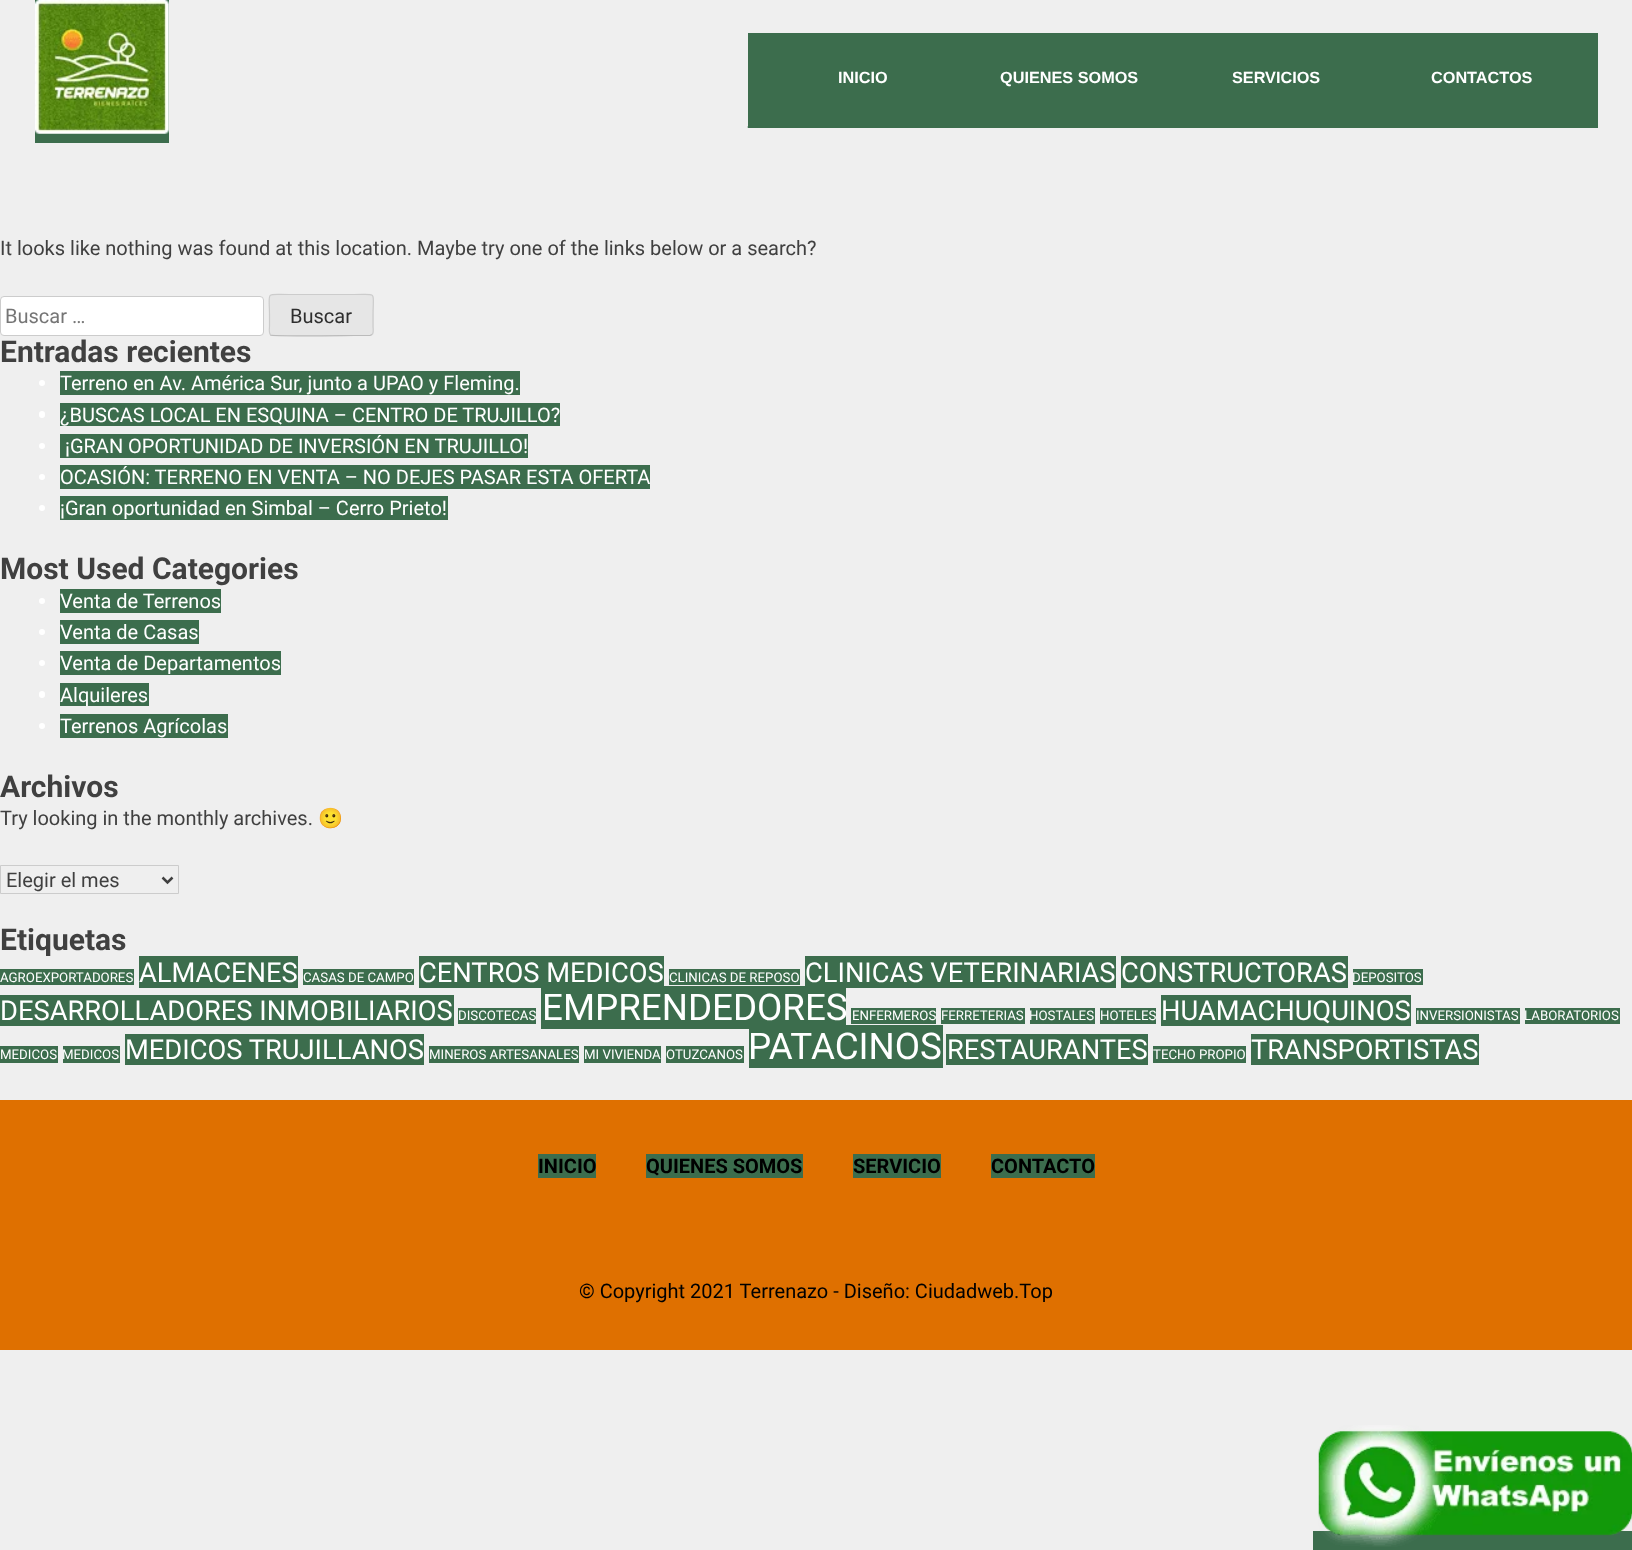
<svg xmlns="http://www.w3.org/2000/svg" width="1632" height="1550" viewBox="0 0 1632 1550">
  <rect width="100%" height="100%" fill="#efefef"/>
  <path d="M35 0h134v143H35z" fill="#3c6d4d"/>
  <image x="35" y="0" width="134" height="134" href="img/1.png"/>
  <path d="M748 33h206v95H748z" fill="#3c6d4d"/>
  <path d="M747.5 127H979" fill="none" stroke="#3c6d4d" stroke-width="1.2" stroke-dasharray="1.25 1.25"/>
  <path d="M954 33h644v95H954z" fill="#3c6d4d"/>
  <rect x="0.5" y="296.5" width="263" height="39" rx="3.5" fill="#fff" stroke="#ccc"/>
  <rect x="269" y="294" width="105" height="42" rx="4" fill="#e6e6e6"/>
  <path d="M372 334.5L370 335.5H354C345 335.5 272.5 336.5 270.5 335V334.5" fill="none" stroke="#bbb" stroke-width="1.2"/>
  <path d="M270.5 334.5C268.5 333 269.5 328 269.5 326.5V315C269.5 290.5 264.5 294.5 289 294.5H354C378 294.5 373 290.5 373 315V326.5C373 328 374 333 372 334.5" fill="none" stroke="#ccc" stroke-width="1.2"/>
  <circle cx="42" cy="383" r="3" fill="#fff"/>
  <path d="M60 371h460v24H60z" fill="#3c6d4d"/>
  <rect x="39" y="411" width="6" height="7" rx="3" fill="#fff"/>
  <path d="M60 403h500v23H60z" fill="#3c6d4d"/>
  <circle cx="42" cy="446" r="3" fill="#fff"/>
  <path d="M60 434h468v24H60z" fill="#3c6d4d"/>
  <circle cx="42" cy="477" r="3" fill="#fff"/>
  <path d="M60 465h590v24H60z" fill="#3c6d4d"/>
  <circle cx="42" cy="508" r="3" fill="#fff"/>
  <path d="M60 496h388v24H60z" fill="#3c6d4d"/>
  <circle cx="42" cy="601" r="3" fill="#fff"/>
  <path d="M60 589h161v24H60z" fill="#3c6d4d"/>
  <circle cx="42" cy="632" r="3" fill="#fff"/>
  <path d="M60 620h139v24H60z" fill="#3c6d4d"/>
  <circle cx="42" cy="663" r="3" fill="#fff"/>
  <path d="M60 651h221v24H60z" fill="#3c6d4d"/>
  <rect x="39" y="691" width="6" height="7" rx="3" fill="#fff"/>
  <path d="M60 683h89v23H60z" fill="#3c6d4d"/>
  <circle cx="42" cy="726" r="3" fill="#fff"/>
  <path d="M60 714h168v24H60z" fill="#3c6d4d"/>
  <path d="M0.5 865.5h178v28H0.5z" fill="none" stroke="#ccc"/>
  <path d="M162.5 877.5L167.5 882.5L172.5 877.5" fill="none" stroke="#404040" stroke-width="2.5"/>
  <path d="M0 969h134v16H0z" fill="#3c6d4d"/>
  <path d="M139 956h159v32H139z" fill="#3c6d4d"/>
  <path d="M303 969h111v16H303z" fill="#3c6d4d"/>
  <path d="M419 956h245v32H419z" fill="#3c6d4d"/>
  <path d="M669 969h131v16H669z" fill="#3c6d4d"/>
  <path d="M805 956h311v32H805z" fill="#3c6d4d"/>
  <path d="M1121 956h227v32H1121z" fill="#3c6d4d"/>
  <path d="M1353 969h70v16H1353z" fill="#3c6d4d"/>
  <path d="M0 995h454v31H0z" fill="#3c6d4d"/>
  <path d="M458 1008h78v16H458z" fill="#3c6d4d"/>
  <path d="M541 986h305v43H541z" fill="#3c6d4d"/>
  <path d="M851 1008h85v16H851z" fill="#3c6d4d"/>
  <path d="M941 1008h84v16H941z" fill="#3c6d4d"/>
  <path d="M1030 1008h65v16H1030z" fill="#3c6d4d"/>
  <path d="M1100 1008h56v16H1100z" fill="#3c6d4d"/>
  <path d="M1161 995h250v31H1161z" fill="#3c6d4d"/>
  <path d="M1416 1008h104v16H1416z" fill="#3c6d4d"/>
  <path d="M1525 1008h95v16H1525z" fill="#3c6d4d"/>
  <path d="M0 1046h58v17H0z" fill="#3c6d4d"/>
  <path d="M63 1046h57v17H63z" fill="#3c6d4d"/>
  <path d="M125 1034h299v31H125z" fill="#3c6d4d"/>
  <path d="M429 1046h150v17H429z" fill="#3c6d4d"/>
  <path d="M584 1046h77v17H584z" fill="#3c6d4d"/>
  <path d="M666 1046h78v17H666z" fill="#3c6d4d"/>
  <path d="M749 1025h194v43H749z" fill="#3c6d4d"/>
  <path d="M946 1034h202v31H946z" fill="#3c6d4d"/>
  <path d="M1153 1046h93v17H1153z" fill="#3c6d4d"/>
  <path d="M1251 1034h228v31H1251z" fill="#3c6d4d"/>
  <path d="M0 1100h1632v250H0z" fill="#df7000"/>
  <path d="M538 1154h58v24H538z" fill="#3c6d4d"/>
  <path d="M646 1154h157v24H646z" fill="#3c6d4d"/>
  <path d="M853 1154h88v24H853z" fill="#3c6d4d"/>
  <path d="M991 1154h104v24H991z" fill="#3c6d4d"/>
  <path d="M1313 1531h319v19H1313z" fill="#3c6d4d"/>
  <image x="1318" y="1425" width="314" height="122" href="img/2.png"/>
  <g font-family="Liberation Sans" font-size="16.25" font-weight="bold" fill="#fff">
    <text x="838" y="83">INICIO</text>
    <text x="1000" y="83">QUIENES SOMOS</text>
    <text x="1232" y="83">SERVICIOS</text>
    <text x="1431" y="83">CONTACTOS</text>
  </g>
  <text x="0" y="255" font-family="Roboto" font-size="20" fill="#404040">It looks like nothing was found at this location. Maybe try one of the links below or a search?</text>
  <text x="5" y="323" font-family="Roboto" font-size="20" fill="#757575">Buscar …</text>
  <text x="290" y="323" font-family="Roboto" font-size="20" fill="#2e2e2e">Buscar</text>
  <text x="0" y="362" font-family="Roboto" font-size="30" font-weight="bold" fill="#404040">Entradas recientes</text>
  <g font-family="Roboto" font-size="20" fill="#fff">
    <text x="60" y="390">Terreno en Av. América Sur, junto a UPAO y Fleming.</text>
    <text x="60" y="422">¿BUSCAS LOCAL EN ESQUINA – CENTRO DE TRUJILLO?</text>
    <text x="65" y="453">¡GRAN OPORTUNIDAD DE INVERSIÓN EN TRUJILLO!</text>
    <text x="60" y="484">OCASIÓN: TERRENO EN VENTA – NO DEJES PASAR ESTA OFERTA</text>
    <text x="60" y="515">¡Gran oportunidad en Simbal – Cerro Prieto!</text>
  </g>
  <text x="0" y="579" font-family="Roboto" font-size="30" font-weight="bold" fill="#404040">Most Used Categories</text>
  <g font-family="Roboto" font-size="20" fill="#fff">
    <text x="60" y="608">Venta de Terrenos</text>
    <text x="60" y="639">Venta de Casas</text>
    <text x="60" y="670">Venta de Departamentos</text>
    <text x="60" y="702">Alquileres</text>
    <text x="60" y="733">Terrenos Agrícolas</text>
  </g>
  <text x="0" y="797" font-family="Roboto" font-size="30" font-weight="bold" fill="#404040">Archivos</text>
  <text x="0" y="825" font-family="Roboto" font-size="20" fill="#404040">Try looking in the monthly archives.</text>
  <text x="318" y="825" font-family="Noto Color Emoji" font-size="20" fill="#404040">🙂</text>
  <text x="6" y="887" font-family="Roboto" font-size="20" fill="#404040">Elegir el mes</text>
  <text x="0" y="950" font-family="Roboto" font-size="30" font-weight="bold" fill="#404040">Etiquetas</text>
  <text x="0" y="982" font-family="Roboto" font-size="13.25" fill="#fff">AGROEXPORTADORES</text>
  <text x="139" y="982" font-family="Roboto" font-size="27.3" fill="#fff">ALMACENES</text>
  <text x="303" y="982" font-family="Roboto" font-size="13.25" fill="#fff">CASAS DE CAMPO</text>
  <text x="419" y="982" font-family="Roboto" font-size="27.3" fill="#fff">CENTROS MEDICOS</text>
  <text x="669" y="982" font-family="Roboto" font-size="13.25" fill="#fff">CLINICAS DE REPOSO</text>
  <g font-family="Roboto" font-size="27.3" fill="#fff">
    <text x="805" y="982">CLINICAS VETERINARIAS</text>
    <text x="1121" y="982">CONSTRUCTORAS</text>
  </g>
  <text x="1352" y="982" font-family="Roboto" font-size="13.25" fill="#fff">DEPOSITOS</text>
  <text x="0" y="1020" font-family="Roboto" font-size="27.3" fill="#fff">DESARROLLADORES INMOBILIARIOS</text>
  <text x="458" y="1020" font-family="Roboto" font-size="13.25" fill="#fff">DISCOTECAS</text>
  <text x="542" y="1020" font-family="Roboto" font-size="36.75" fill="#fff">EMPRENDEDORES</text>
  <g font-family="Roboto" font-size="13.25" fill="#fff">
    <text x="852" y="1020">ENFERMEROS</text>
    <text x="941" y="1020">FERRETERIAS</text>
    <text x="1029" y="1020">HOSTALES</text>
    <text x="1100" y="1020">HOTELES</text>
  </g>
  <text x="1161" y="1020" font-family="Roboto" font-size="27.3" fill="#fff">HUAMACHUQUINOS</text>
  <g font-family="Roboto" font-size="13.25" fill="#fff">
    <text x="1416" y="1020">INVERSIONISTAS</text>
    <text x="1524" y="1020">LABORATORIOS</text>
    <text x="0" y="1059">MEDICOS</text>
    <text x="62" y="1059">MEDICOS</text>
  </g>
  <text x="125" y="1059" font-family="Roboto" font-size="27.3" fill="#fff">MEDICOS TRUJILLANOS</text>
  <g font-family="Roboto" font-size="13.25" fill="#fff">
    <text x="429" y="1059">MINEROS ARTESANALES</text>
    <text x="584" y="1059">MI VIVIENDA</text>
    <text x="666" y="1059">OTUZCANOS</text>
  </g>
  <text x="748" y="1059" font-family="Roboto" font-size="36.75" fill="#fff">PATACINOS</text>
  <text x="947" y="1059" font-family="Roboto" font-size="27.3" fill="#fff">RESTAURANTES</text>
  <text x="1153" y="1059" font-family="Roboto" font-size="13.25" fill="#fff">TECHO PROPIO</text>
  <text x="1251" y="1059" font-family="Roboto" font-size="27.3" fill="#fff">TRANSPORTISTAS</text>
  <g font-family="Roboto" font-size="20" font-weight="bold" fill="#000">
    <text x="538" y="1173">INICIO</text>
    <text x="646" y="1173">QUIENES SOMOS</text>
    <text x="853" y="1173">SERVICIO</text>
    <text x="991" y="1173">CONTACTO</text>
  </g>
  <text x="579" y="1298" font-family="Roboto" font-size="20" fill="#000">© Copyright 2021 Terrenazo - Diseño: Ciudadweb.Top</text>
</svg>
